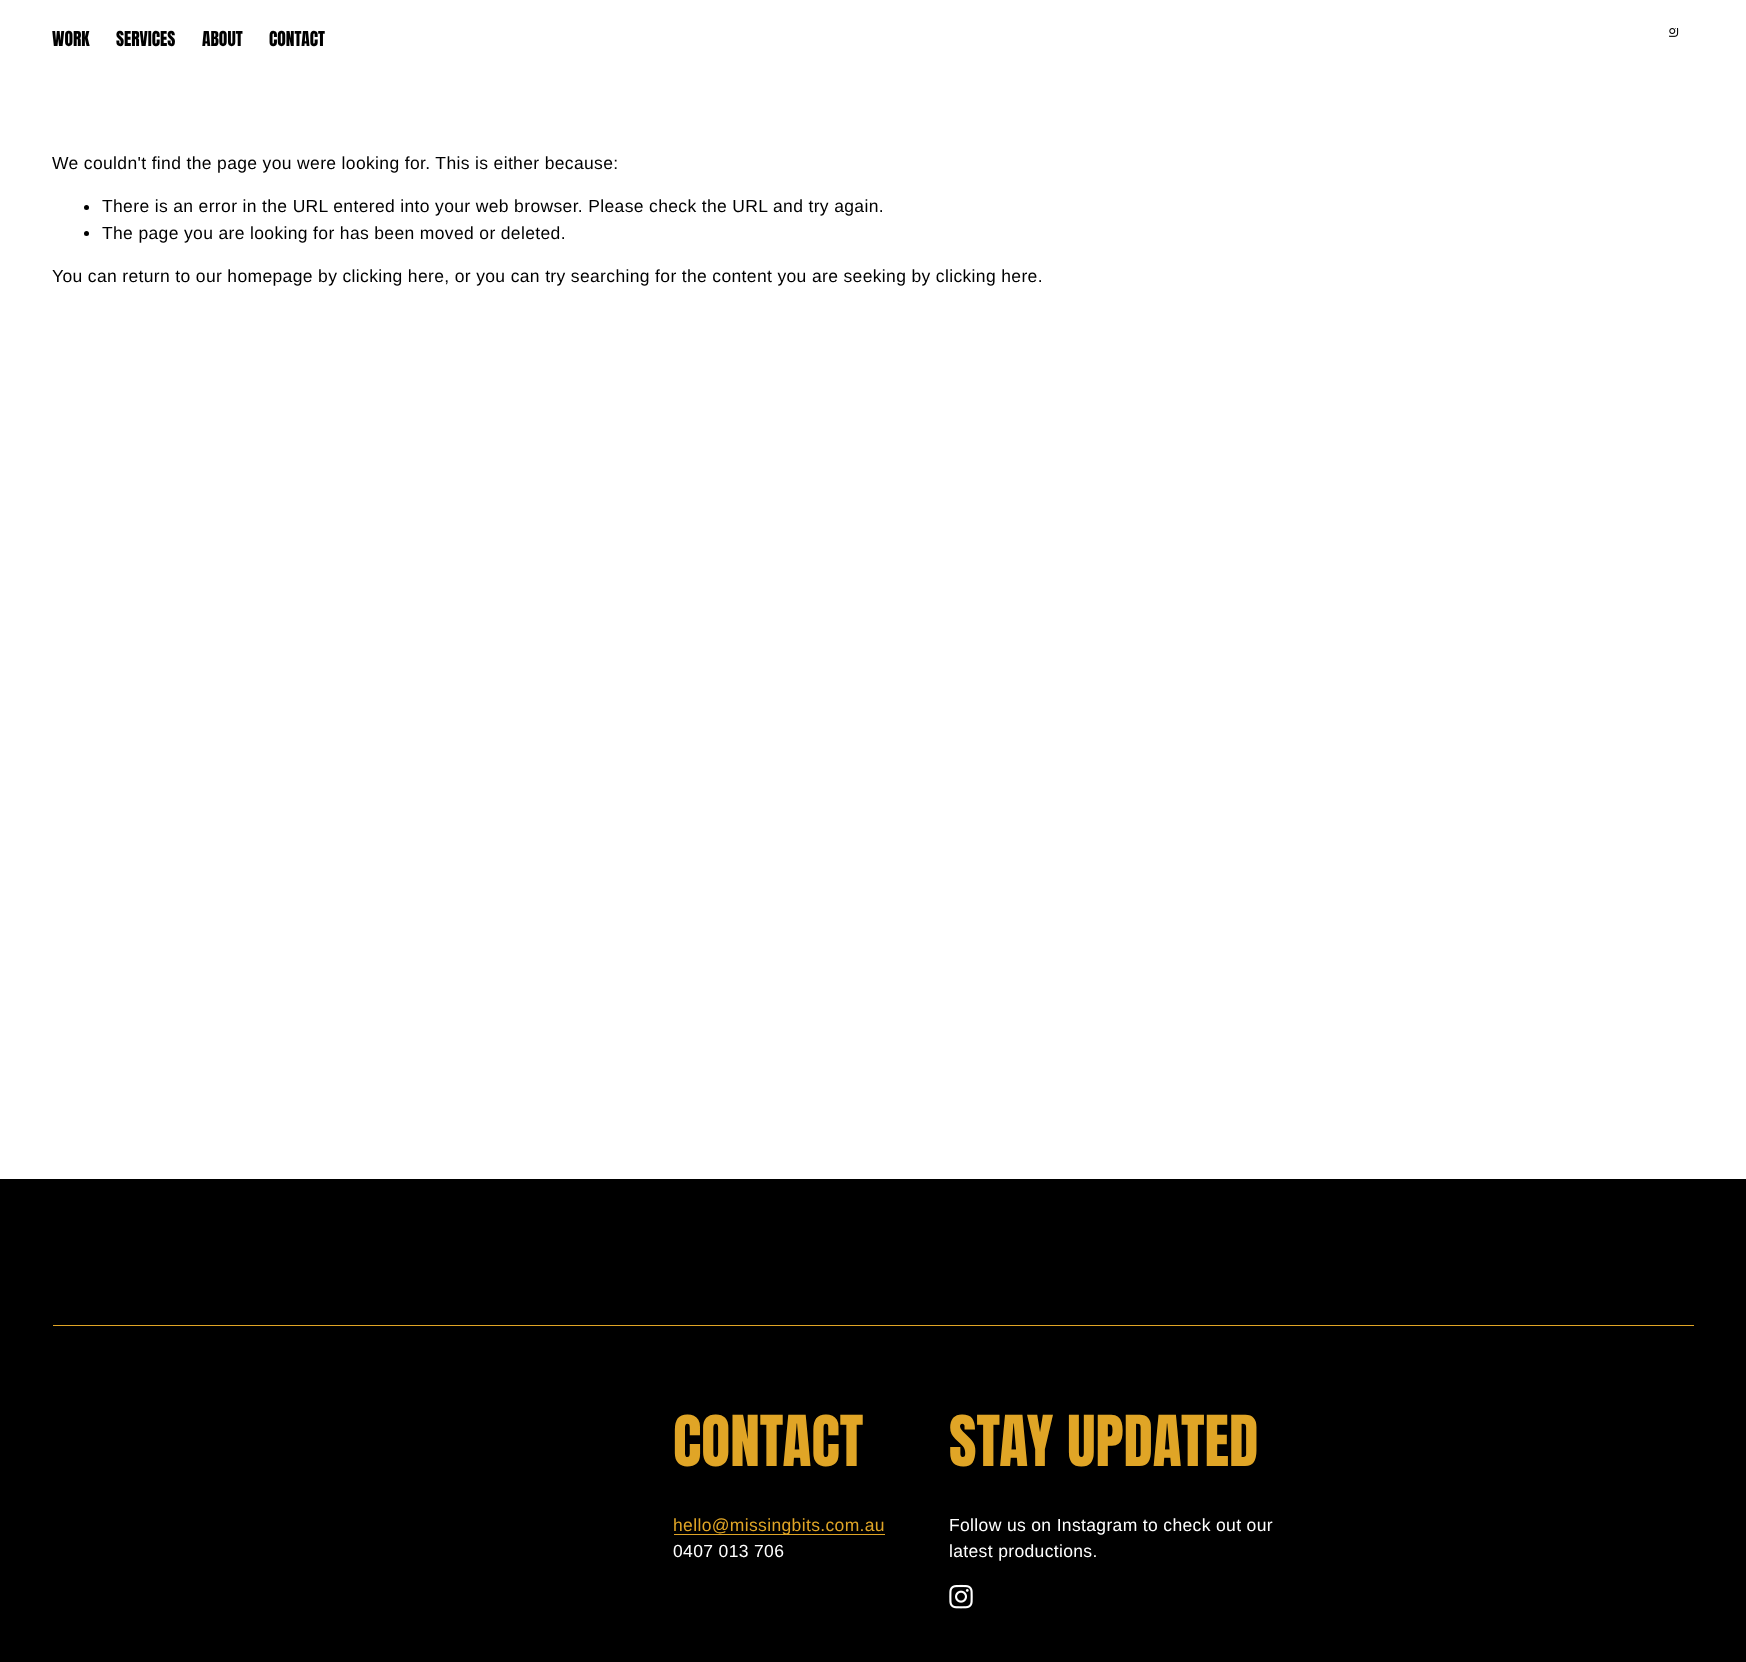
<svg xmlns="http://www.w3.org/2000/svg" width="1746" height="1662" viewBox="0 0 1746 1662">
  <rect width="100%" height="100%" fill="#fff"/>
  <image x="1669" y="28" width="10" height="9" href="img/1.png"/>
  <circle cx="86.5" cy="207.5" r="2.5" fill="#000"/>
  <circle cx="86.5" cy="233.5" r="2.5" fill="#000"/>
  <path d="M0 1179h1746v483H0z" fill="#000"/>
  <path d="M53 1325h1641v1H53z" fill="#e0a526"/>
  <path d="M674 1534h211v1H674z" fill="#e0a526"/>
  <image x="949" y="1584" width="24" height="25" href="img/2.png"/>
  <g font-family="Anton" font-size="17.5" fill="#000">
    <text x="52" y="46">WORK</text>
    <text x="116" y="46">SERVICES</text>
    <text x="202" y="46">ABOUT</text>
    <text x="269" y="46">CONTACT</text>
  </g>
  <g font-family="Liberation Sans" font-size="17.5" letter-spacing="0.35" fill="#000">
    <text x="52" y="169">We couldn't find the page you were looking for. This is either because:</text>
    <text x="102" y="212">There is an error in the URL entered into your web browser. Please check the URL and try again.</text>
    <text x="102" y="239">The page you are looking for has been moved or deleted.</text>
    <text x="52" y="282">You can return to our homepage by clicking here, or you can try searching for the content you are seeking by clicking here.</text>
  </g>
  <text x="673" y="1466" font-family="Anton" font-size="59.5" fill="#e0a526">CONTACT</text>
  <text x="673" y="1531" font-family="Liberation Sans" font-size="17.5" letter-spacing="0.35" fill="#e0a526">hello@missingbits.com.au</text>
  <text x="673" y="1557" font-family="Liberation Sans" font-size="17.5" letter-spacing="0.35" fill="#fff">0407 013 706</text>
  <text x="949" y="1466" font-family="Anton" font-size="59.5" fill="#e0a526">STAY UPDATED</text>
  <g font-family="Liberation Sans" font-size="17.5" letter-spacing="0.35" fill="#fff">
    <text x="949" y="1531">Follow us on Instagram to check out our</text>
    <text x="949" y="1557">latest productions.</text>
  </g>
</svg>
